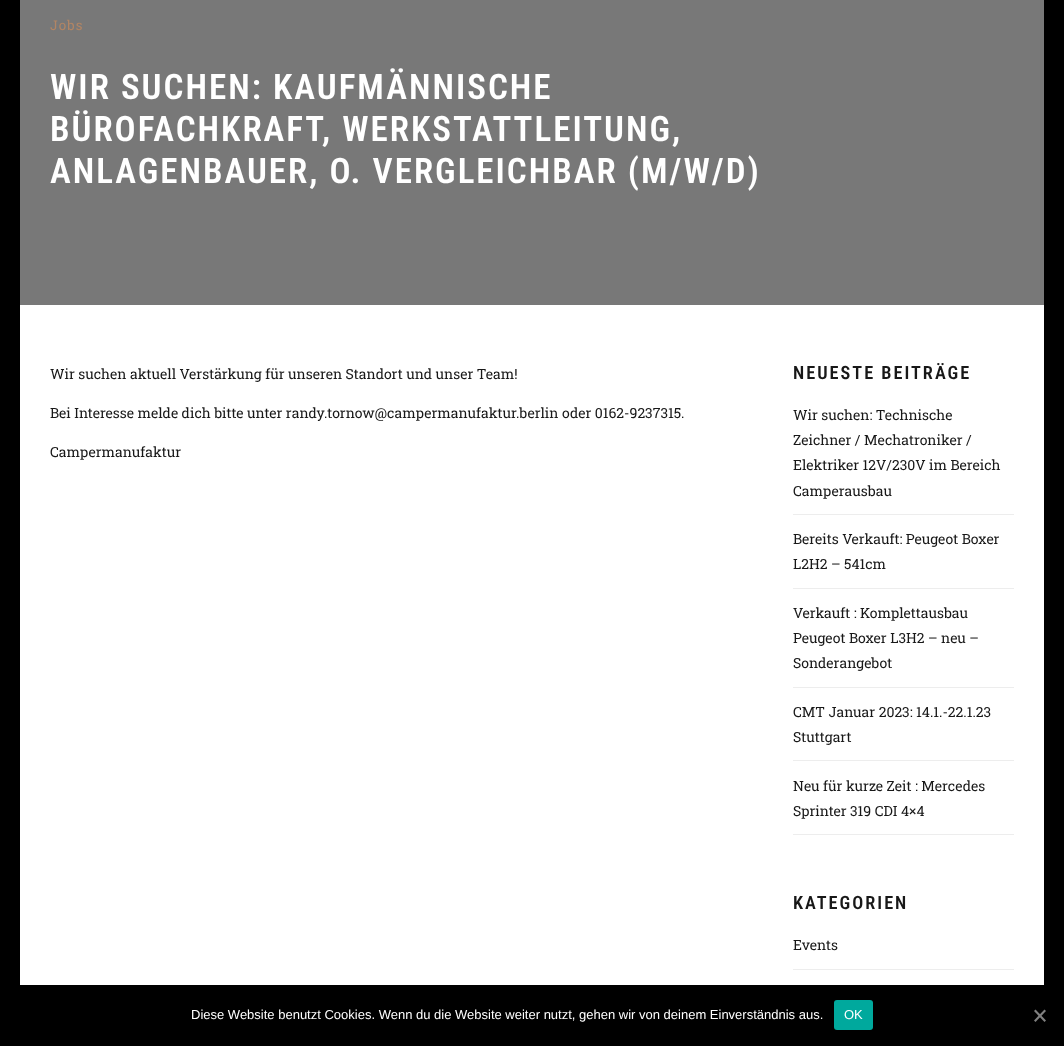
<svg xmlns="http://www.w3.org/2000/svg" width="1064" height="1046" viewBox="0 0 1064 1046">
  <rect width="100%" height="100%" fill="#fff"/>
  <path d="M10 -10h1044v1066H10z" fill="none" stroke="#000" stroke-width="20"/>
  <path d="M20 0h1024v305H20z" fill="#787878"/>
  <path d="M793 514h221v1H793z" fill="#ededed"/>
  <path d="M793 588h221v1H793z" fill="#ededed"/>
  <path d="M793 687h221v1H793z" fill="#ededed"/>
  <path d="M793 760h221v1H793z" fill="#ededed"/>
  <path d="M793 834h221v1H793z" fill="#ededed"/>
  <path d="M793 969h221v1H793z" fill="#ededed"/>
  <path d="M20 985h1024v61H20z" fill="#000"/>
  <rect x="834" y="1000" width="39" height="30" rx="3" fill="#00a99d"/>
  <path d="M1044.5 1009.5L1046 1011L1035.5 1022L1034 1020.5Z" fill="#808080"/>
  <path d="M1034 1011L1035.5 1009.5L1046 1020.5L1044.5 1022Z" fill="#808080"/>
  <text x="50" y="30" font-family="Roboto Slab" font-size="13.5" letter-spacing="1" fill="#b28564">Jobs</text>
  <g font-family="Roboto Condensed" font-size="35" font-weight="600" letter-spacing="2" fill="#fff">
    <text x="50" y="99">WIR SUCHEN: KAUFMÄNNISCHE</text>
    <text x="50" y="141">BÜROFACHKRAFT, WERKSTATTLEITUNG,</text>
    <text x="50" y="183">ANLAGENBAUER, O. VERGLEICHBAR (M/W/D)</text>
  </g>
  <g font-family="Roboto Slab" font-size="14" fill="#181818">
    <text x="50" y="379">Wir suchen aktuell Verstärkung für unseren Standort und unser Team!</text>
    <text x="50" y="418">Bei Interesse melde dich bitte unter randy.tornow@campermanufaktur.berlin oder 0162-9237315.</text>
    <text x="50" y="457">Campermanufaktur</text>
  </g>
  <text x="793" y="379" font-family="Roboto Condensed" font-size="18.25" font-weight="600" letter-spacing="2" fill="#181818">NEUESTE BEITRÄGE</text>
  <g font-family="Roboto Slab" font-size="14" fill="#181818">
    <text x="793" y="420">Wir suchen: Technische</text>
    <text x="793" y="445">Zeichner / Mechatroniker /</text>
    <text x="793" y="470">Elektriker 12V/230V im Bereich</text>
    <text x="793" y="496">Camperausbau</text>
    <text x="793" y="544">Bereits Verkauft: Peugeot Boxer</text>
    <text x="793" y="569">L2H2 – 541cm</text>
    <text x="793" y="618">Verkauft : Komplettausbau</text>
    <text x="793" y="643">Peugeot Boxer L3H2 – neu –</text>
    <text x="793" y="668">Sonderangebot</text>
    <text x="793" y="717">CMT Januar 2023: 14.1.-22.1.23</text>
    <text x="793" y="742">Stuttgart</text>
    <text x="793" y="791">Neu für kurze Zeit : Mercedes</text>
    <text x="793" y="816">Sprinter 319 CDI 4×4</text>
  </g>
  <text x="793" y="909" font-family="Roboto Condensed" font-size="18.25" font-weight="600" letter-spacing="2" fill="#181818">KATEGORIEN</text>
  <text x="793" y="950" font-family="Roboto Slab" font-size="14" fill="#181818">Events</text>
  <g font-family="Liberation Sans" font-size="13" fill="#fff">
    <text x="191" y="1019">Diese Website benutzt Cookies. Wenn du die Website weiter nutzt, gehen wir von deinem Einverständnis aus.</text>
    <text x="844" y="1019">OK</text>
  </g>
</svg>
